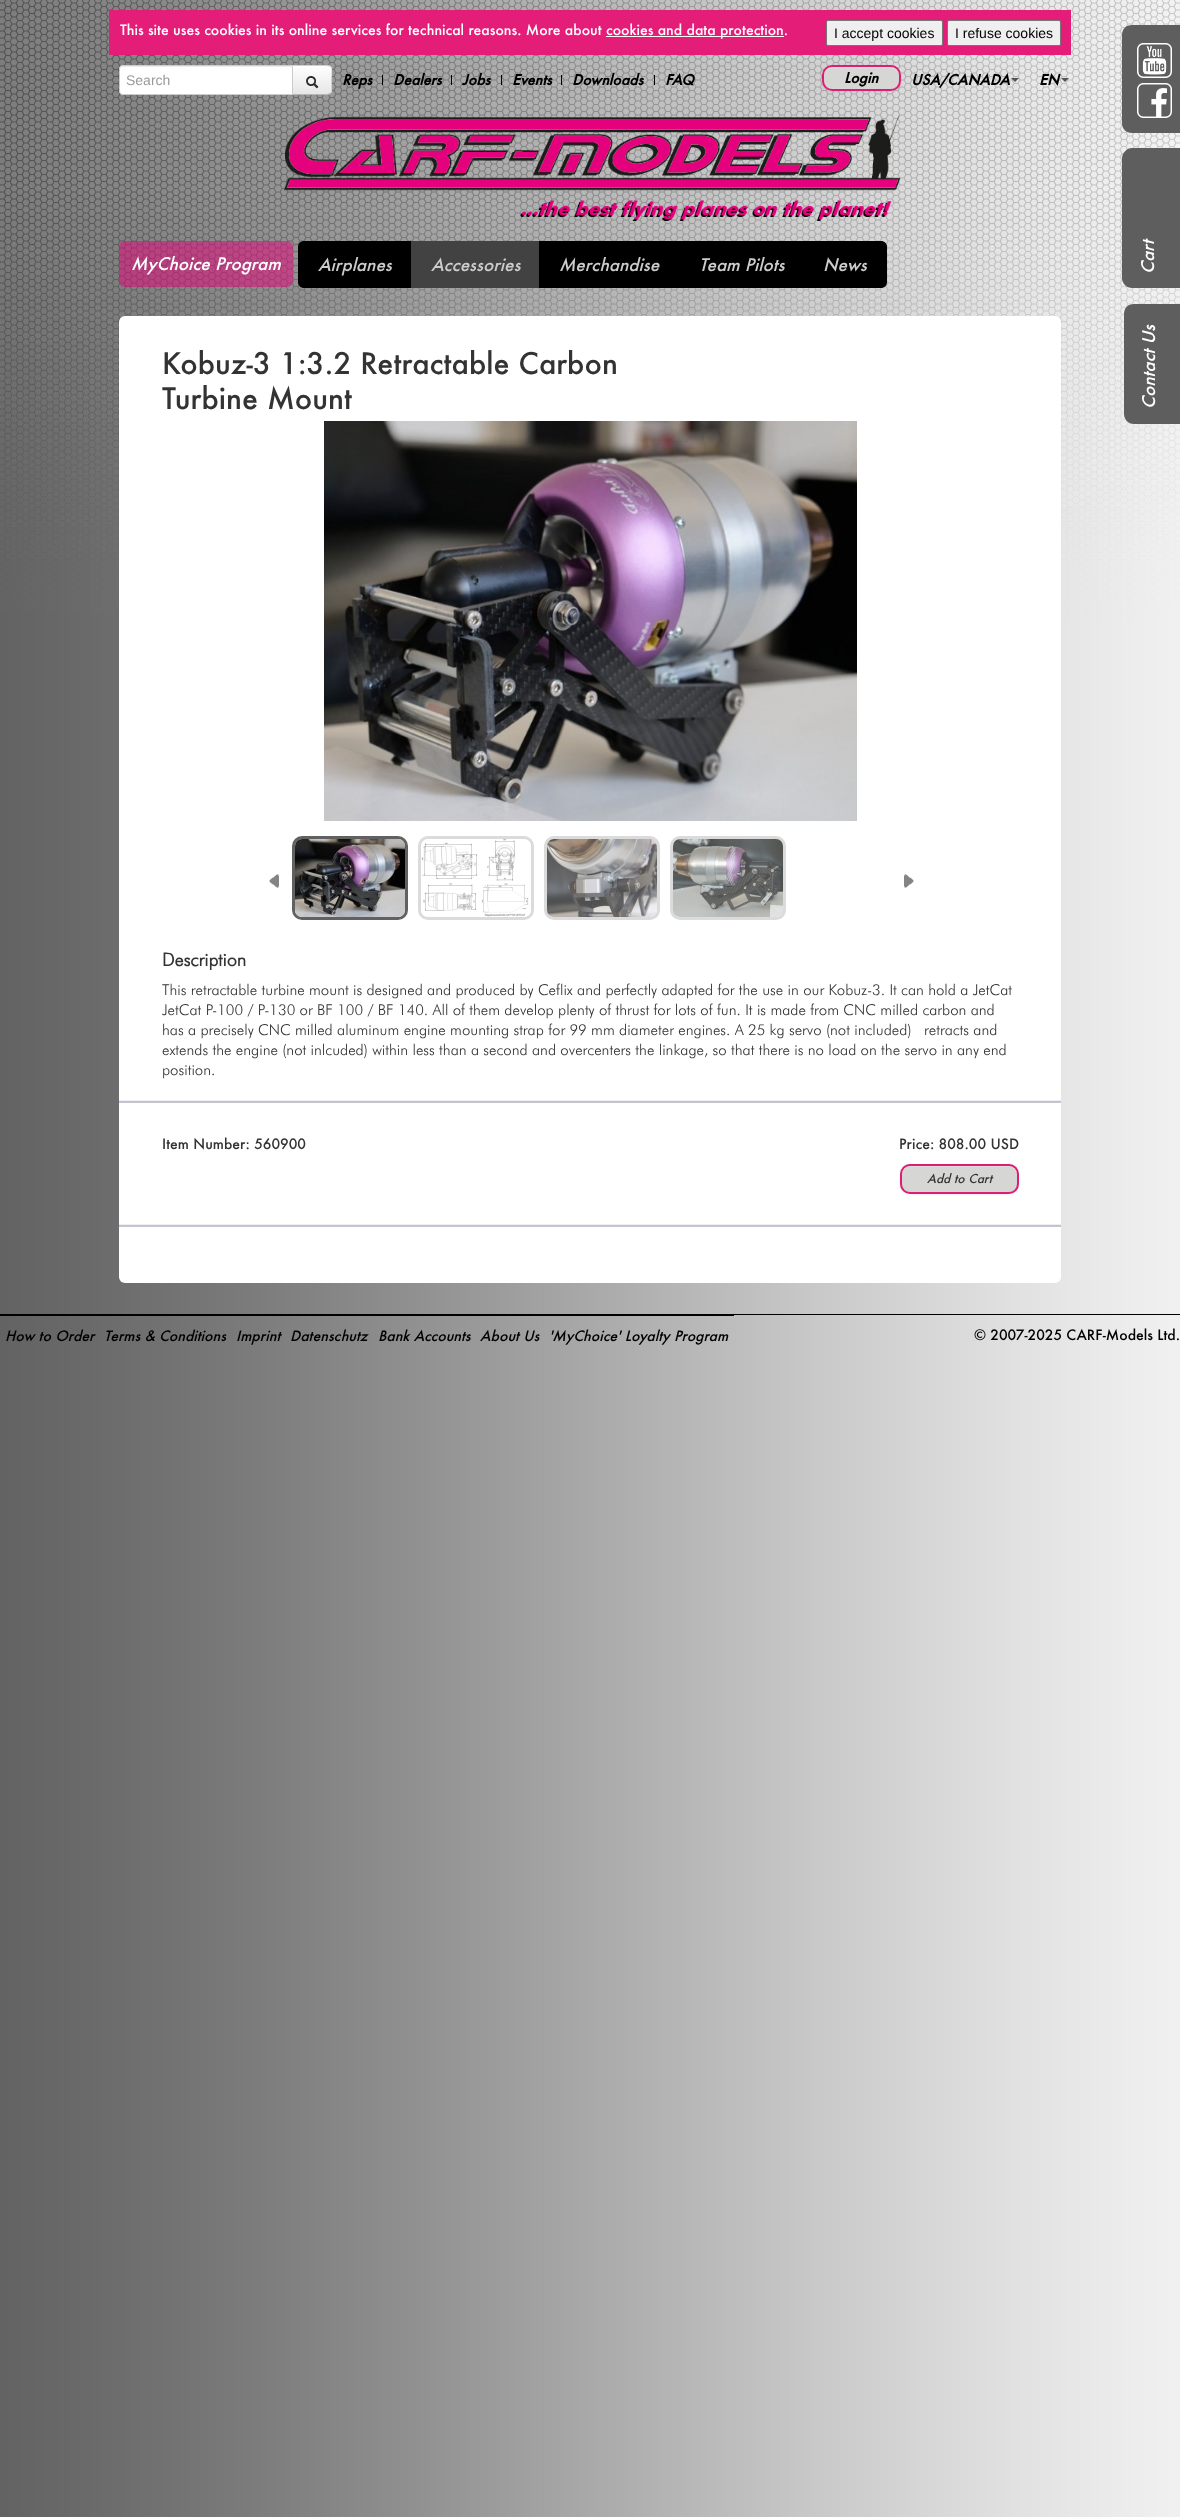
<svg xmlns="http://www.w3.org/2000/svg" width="1180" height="2517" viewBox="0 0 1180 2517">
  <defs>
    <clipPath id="clip1"><path d="M292 65H328C330 65 332 67 332 69V91C332 93 330 95 328 95H292Z"/></clipPath>
    <linearGradient id="g1" gradientUnits="userSpaceOnUse" x1="312" y1="66" x2="312" y2="94"><stop offset="0" stop-color="#fff"/><stop offset="1" stop-color="#e6e6e6"/></linearGradient>
  </defs>
  <rect width="100%" height="100%" fill="#fff"/>
  <image x="0" y="0" width="1180" height="2517" href="img/1.png"/>
  <path d="M109 10h962v45H109z" fill="#e41d78"/>
  <path d="M606 36h178v1H606z" fill="#fff"/>
  <rect x="826.5" y="20.5" width="116" height="25" rx="1.5" fill="#efefef" stroke="#767676"/>
  <rect x="947.5" y="20.5" width="113" height="25" rx="1.5" fill="#efefef" stroke="#767676"/>
  <path d="M292 65H328C330 65 332 67 332 69V91C332 93 330 95 328 95H292Z" fill="#f5f5f5"/>
  <g clip-path="url(#clip1)">
    <path d="M293 66h39v28H293z" fill="url(#g1)"/>
  </g>
  <path d="M292 65L293 66H322C326.5 66 329 66 330 67L331 66C330 65.5 329 65 328 65Z" fill="#00000026"/>
  <path d="M332 91V69C332 68 331.5 67 331 66L330 67C331 67.5 331 68.5 331.5 69L331 80L331.5 91C331 91.5 331 92.5 330 93L331 94C331.5 93 332 92 332 91Z" fill="#00000026"/>
  <path d="M328 95C329 95 330 94.5 331 94L330 93C329 94 326.5 94 322 94H293L292 95Z" fill="#00000040"/>
  <path d="M123 65H293V95H123C121 95 119 93 119 91V69C119 67 121 65 123 65Z" fill="#fff"/>
  <path d="M123 67H292V66H123C121 66 120 68 120 70C120 68 121 67 123 67Z" fill="#ececec"/>
  <path d="M123 65.5H292.5V94.5H123C121 94.5 119.5 93 119.5 91V69C119.5 67 121 65.5 123 65.5Z" fill="none" stroke="#ccc"/>
  <image x="306" y="76" width="13" height="13" href="img/2.png"/>
  <path d="M382 75h1v10H382z" fill="#000"/>
  <path d="M451 75h1v10H451z" fill="#000"/>
  <path d="M501 75h1v10H501z" fill="#000"/>
  <path d="M561 75h1v10H561z" fill="#000"/>
  <path d="M654 75h1v10H654z" fill="#000"/>
  <rect x="822" y="66" width="79" height="26" rx="10" fill="#0000000d" filter="blur(1px)"/>
  <rect x="822" y="65" width="79" height="26" rx="10" fill="#d6d6d4"/>
  <path d="M832 68H891C895 68 899 72 899 76C899 65 889 67 881 67H842C834 67 824 65 824 76C824 72 828 68 832 68Z" fill="#dededd"/>
  <rect x="823" y="66" width="77" height="24" rx="9" fill="none" stroke="#de1e74" stroke-width="2"/>
  <path d="M1011 78H1019L1015 82Z" fill="#555"/>
  <path d="M1061 78H1069L1065 82Z" fill="#555"/>
  <image x="284" y="115" width="617" height="106" href="img/3.png"/>
  <rect x="119" y="241" width="174" height="46" rx="6" fill="#e4087c87"/>
  <path d="M304 241H411V288H304C300.5 288 298 285.5 298 282V247C298 243.5 300.5 241 304 241Z" fill="#000"/>
  <path d="M411 241h128v47H411z" fill="#424242"/>
  <path d="M539 241h264v47H539z" fill="#000"/>
  <path d="M803 241H881C884.5 241 887 243.5 887 247V282C887 285.5 884.5 288 881 288H803Z" fill="#000"/>
  <path d="M1122 123V35C1122 29 1126 25 1132 25H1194V133H1132C1126 133 1122 129 1122 123Z" fill="#5e5e5e"/>
  <image x="1137" y="43" width="35" height="35" href="img/4.png"/>
  <image x="1137" y="83" width="35" height="35" href="img/5.png"/>
  <path d="M1122 278V158C1122 153 1127 148 1132 148H1180V288H1132C1127 288 1122 284 1122 278Z" fill="#5e5e5e"/>
  <path d="M1124 414V314C1124 308 1128 304 1134 304H1180V424H1134C1128 424 1124 419 1124 414Z" fill="#5e5e5e"/>
  <rect x="119" y="316" width="942" height="967" rx="6" fill="#fff"/>
  <image x="324" y="421" width="533" height="400" href="img/6.png"/>
  <image x="269" y="874" width="10" height="14" href="img/7.png"/>
  <rect x="293.5" y="837.5" width="113" height="81" rx="8.5" fill="none" stroke="#616161" stroke-width="3"/>
  <image x="295" y="839" width="110" height="78" href="img/8.png"/>
  <rect x="419.5" y="837.5" width="113" height="81" rx="8.5" fill="none" stroke="#dbdbdb" stroke-width="3"/>
  <image x="421" y="839" width="110" height="78" href="img/9.png"/>
  <rect x="545.5" y="837.5" width="113" height="81" rx="8.5" fill="none" stroke="#dbdbdb" stroke-width="3"/>
  <image x="547" y="839" width="110" height="78" href="img/10.png"/>
  <rect x="671.5" y="837.5" width="113" height="81" rx="8.5" fill="none" stroke="#dbdbdb" stroke-width="3"/>
  <image x="673" y="839" width="110" height="78" href="img/11.png"/>
  <image x="904" y="874" width="10" height="14" href="img/12.png"/>
  <path d="M119 1101h942v2H119z" fill="#c2c4d1"/>
  <path d="M119 1100h942v1H119z" fill="#eee"/>
  <rect x="900" y="1165" width="119" height="30" rx="10" fill="#0000000d" filter="blur(1px)"/>
  <rect x="900" y="1164" width="119" height="30" rx="10" fill="#d6d6d4"/>
  <path d="M910 1167H1009C1013 1167 1017 1171 1017 1175C1017 1162 1001 1166 992 1166H926C918 1166 902 1162 902 1175C902 1171 906 1167 910 1167Z" fill="#dededd"/>
  <rect x="901" y="1165" width="117" height="28" rx="9" fill="none" stroke="#de1e74" stroke-width="2"/>
  <path d="M119 1225h942v2H119z" fill="#c2c4d1"/>
  <path d="M119 1224h942v1H119z" fill="#eee"/>
  <path d="M0 1314h1180v1H0z" fill="#000"/>
  <path d="M0 1315h734v1H0z" fill="#000"/>
  <g font-family="Futura" font-size="14" font-weight="500" fill="#fff">
    <text x="120" y="35">This site uses cookies in its online services for technical reasons. More about</text>
    <text x="606" y="35">cookies and data protection.</text>
  </g>
  <g font-family="Liberation Sans" font-size="14" fill="#000">
    <text x="834" y="38">I accept cookies</text>
    <text x="955" y="38">I refuse cookies</text>
  </g>
  <text x="126" y="85" font-family="Liberation Sans" font-size="14" fill="#999">Search</text>
  <g font-family="Futura" font-size="14" font-weight="bold" font-style="italic" fill="#000">
    <text x="342" y="85">Reps</text>
    <text x="393" y="85">Dealers</text>
    <text x="462" y="85">Jobs</text>
    <text x="512" y="85">Events</text>
    <text x="572" y="85">Downloads</text>
    <text x="665" y="85">FAQ</text>
    <text x="844" y="83">Login</text>
    <text x="911" y="85">USA/CANADA</text>
    <text x="1039" y="85">EN</text>
  </g>
  <text x="131" y="270" font-family="Futura" font-size="17" font-weight="500" font-style="italic" fill="#fff">MyChoice Program</text>
  <g font-family="Futura" font-size="17" font-weight="500" font-style="italic" fill="#ccc">
    <text x="318" y="271">Airplanes</text>
    <text x="431" y="271">Accessories</text>
    <text x="559" y="271">Merchandise</text>
    <text x="699" y="271">Team Pilots</text>
    <text x="823" y="271">News</text>
  </g>
  <g font-family="Futura" font-size="17" font-weight="500" font-style="italic" fill="#fff">
    <text x="1154" y="274" transform="rotate(-90 1154 274)">Cart</text>
    <text x="1155" y="409" transform="rotate(-90 1155 409)">Contact Us</text>
  </g>
  <g font-family="Futura" font-size="29" font-weight="500" fill="#333">
    <text x="162" y="374">Kobuz-3 1:3.2 Retractable Carbon</text>
    <text x="162" y="409">Turbine Mount</text>
  </g>
  <text x="162" y="966" font-family="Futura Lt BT" font-size="18" font-weight="bold" fill="#333">Description</text>
  <g font-family="Futura Lt BT" font-size="15" font-weight="300" fill="#333">
    <text x="162" y="995">This retractable turbine mount is designed and produced by Ceflix and perfectly adapted for the use in our Kobuz-3. It can hold a JetCat</text>
    <text x="162" y="1015">JetCat P-100 / P-130 or BF 100 / BF 140. All of them develop plenty of thrust for lots of fun. It is made from CNC milled carbon and</text>
    <text x="162" y="1035">has a precisely CNC milled aluminum engine mounting strap for 99 mm diameter engines. A 25 kg servo (not included)</text>
    <text x="924" y="1035">retracts and</text>
    <text x="162" y="1055">extends the engine (not inlcuded) within less than a second and overcenters the linkage, so that there is no load on the servo in any end</text>
    <text x="162" y="1075">position.</text>
  </g>
  <g font-family="Futura" font-size="14" font-weight="500" fill="#333">
    <text x="162" y="1149">Item Number: 560900</text>
    <text x="899" y="1149">Price: 808.00 USD</text>
  </g>
  <text x="927" y="1183" font-family="Futura" font-size="12" font-weight="500" font-style="italic" fill="#333">Add to Cart</text>
  <g font-family="Futura" font-size="14" font-weight="500" font-style="italic" fill="#000">
    <text x="5" y="1341">How to Order</text>
    <text x="104" y="1341">Terms &amp; Conditions</text>
    <text x="236" y="1341">Imprint</text>
    <text x="290" y="1341">Datenschutz</text>
    <text x="378" y="1341">Bank Accounts</text>
    <text x="480" y="1341">About Us</text>
    <text x="549" y="1341">'MyChoice' Loyalty Program</text>
  </g>
  <text x="974" y="1340" font-family="Futura" font-size="14" font-weight="500" fill="#000">© 2007-2025 CARF-Models Ltd.</text>
</svg>
